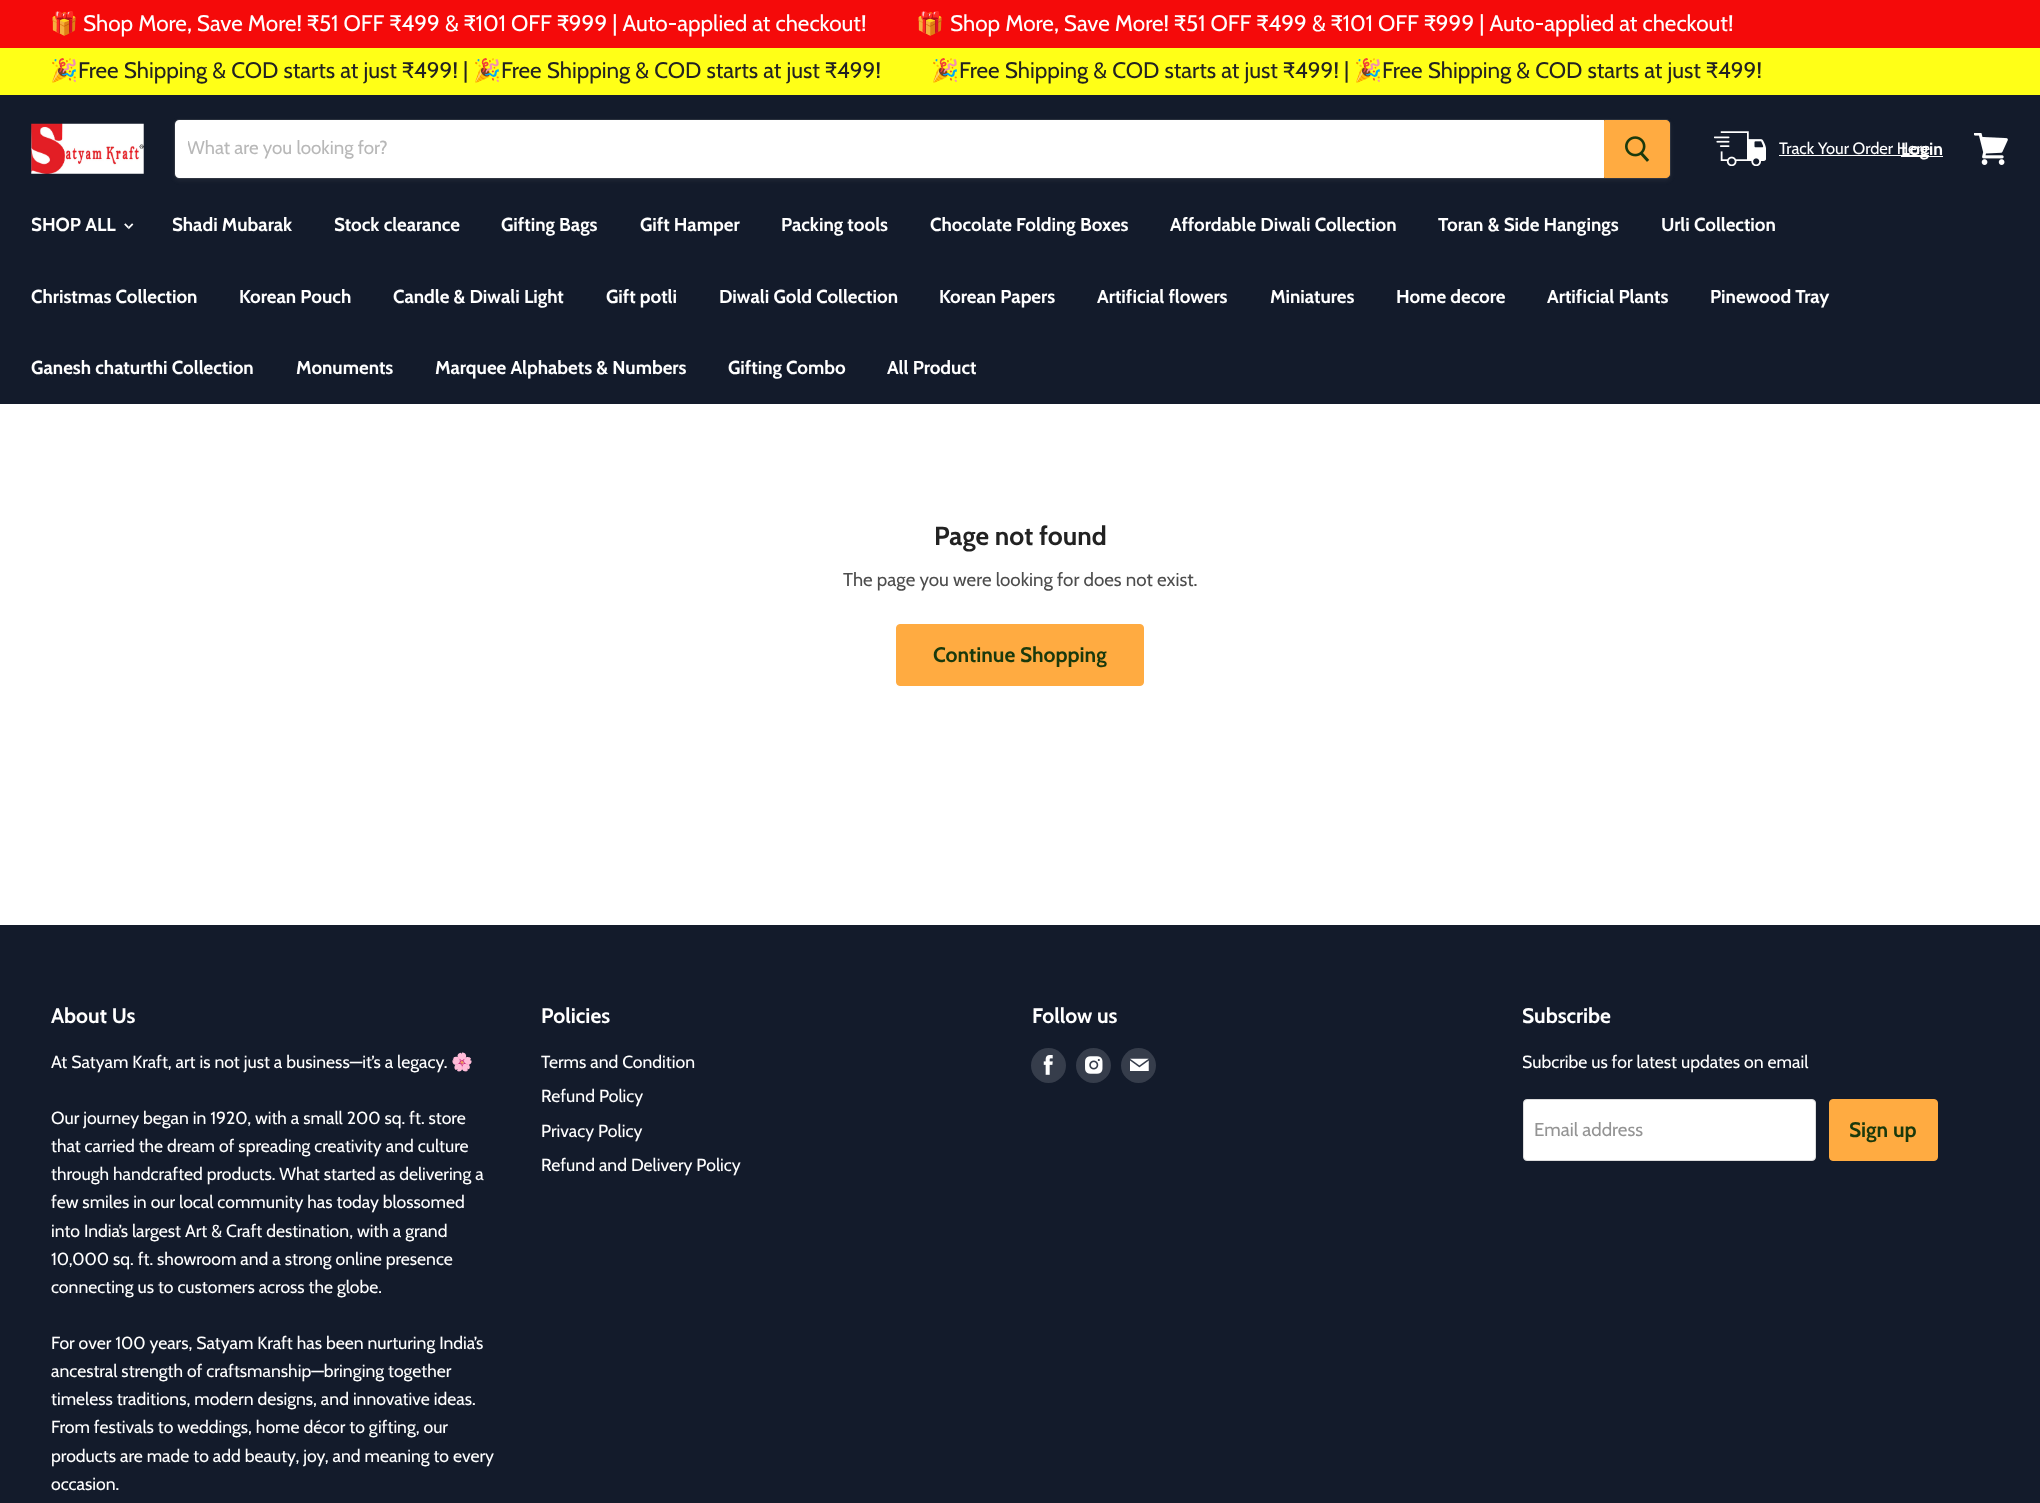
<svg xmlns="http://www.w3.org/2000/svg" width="2040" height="1503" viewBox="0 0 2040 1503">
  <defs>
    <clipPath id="clip1"><path d="M188 136h1403v23H188z"/></clipPath>
  </defs>
  <rect width="100%" height="100%" fill="#fff"/>
  <path d="M0 0h2040v48H0z" fill="#f50a0a"/>
  <path d="M0 48h2040v47H0z" fill="#ffff17"/>
  <path d="M0 95h2040v309H0z" fill="#131b2b"/>
  <image x="31" y="123" width="113" height="51" href="img/1.png"/>
  <rect x="174" y="121" width="1497" height="60" rx="5" fill="#7f7f7f1c" filter="blur(2px)"/>
  <rect x="174.5" y="119.5" width="1496" height="59" rx="4.5" fill="none" stroke="#7f7f7f33"/>
  <path d="M179 120H1604V178H179C177 178 175 176 175 174V124C175 122 177 120 179 120Z" fill="#fff"/>
  <path d="M1604.5 120.5H1666C1668 120.5 1669.5 122 1669.5 124V174C1669.5 176 1668 177.5 1666 177.5H1604.5Z" fill="#ffab41" stroke="#ffab41"/>
  <image x="1625" y="136" width="25" height="26" href="img/2.png"/>
  <image x="1714" y="131" width="52" height="35" href="img/3.png"/>
  <path d="M1779 155h150v1H1779z" fill="#fff"/>
  <path d="M1901 156h42v1H1901z" fill="#fff"/>
  <image x="1974" y="133" width="34" height="32" href="img/4.png"/>
  <image x="124" y="223" width="10" height="7" href="img/5.png"/>
  <rect x="896.5" y="624.5" width="247" height="61" rx="3.5" fill="#ffab41" stroke="#ffab41"/>
  <path d="M0 925h2040v578H0z" fill="#131b2b"/>
  <circle cx="1048.5" cy="1065.5" r="17.5" fill="#363d4b"/>
  <image x="1043" y="1055" width="10" height="20" href="img/6.png"/>
  <circle cx="1093.5" cy="1065.5" r="17.5" fill="#363d4b"/>
  <image x="1085" y="1056" width="18" height="18" href="img/7.png"/>
  <circle cx="1138.5" cy="1065.5" r="17.5" fill="#363d4b"/>
  <image x="1130" y="1058" width="19" height="13" href="img/8.png"/>
  <rect x="1523.5" y="1099.5" width="292" height="61" rx="3.5" fill="#fff" stroke="#ddd"/>
  <rect x="1829.5" y="1099.5" width="108" height="61" rx="3.5" fill="#ffab41" stroke="#ffab41"/>
  <text x="50" y="31" font-family="Noto Color Emoji" font-size="22.5" fill="#fff">🎁</text>
  <text x="83" y="31" font-family="Cabin" font-size="22.5" fill="#fff">Shop More, Save More! ₹51 OFF ₹499 &amp; ₹101 OFF ₹999 | Auto-applied at checkout!</text>
  <text x="916" y="31" font-family="Noto Color Emoji" font-size="22.5" fill="#fff">🎁</text>
  <text x="950" y="31" font-family="Cabin" font-size="22.5" fill="#fff">Shop More, Save More! ₹51 OFF ₹499 &amp; ₹101 OFF ₹999 | Auto-applied at checkout!</text>
  <text x="50" y="78" font-family="Noto Color Emoji" font-size="22.5" fill="#222">🎉</text>
  <text x="78" y="78" font-family="Cabin" font-size="22.5" fill="#222">Free Shipping &amp; COD starts at just ₹499! |</text>
  <text x="473" y="78" font-family="Noto Color Emoji" font-size="22.5" fill="#222">🎉</text>
  <text x="501" y="78" font-family="Cabin" font-size="22.5" fill="#222">Free Shipping &amp; COD starts at just ₹499!</text>
  <text x="931" y="78" font-family="Noto Color Emoji" font-size="22.5" fill="#222">🎉</text>
  <text x="959" y="78" font-family="Cabin" font-size="22.5" fill="#222">Free Shipping &amp; COD starts at just ₹499! |</text>
  <text x="1354" y="78" font-family="Noto Color Emoji" font-size="22.5" fill="#222">🎉</text>
  <text x="1382" y="78" font-family="Cabin" font-size="22.5" fill="#222">Free Shipping &amp; COD starts at just ₹499!</text>
  <g clip-path="url(#clip1)">
    <text x="187" y="154" font-family="Cabin" font-size="18.75" fill="#b8b8b8">What are you looking for?</text>
  </g>
  <text x="1779" y="154" font-family="Cabin" font-size="16.5" fill="#fff">Track Your Order Here</text>
  <text x="1901" y="155" font-family="Cabin" font-size="17.6" font-weight="bold" fill="#fff">Login</text>
  <g font-family="Cabin" font-size="18.75" font-weight="bold" fill="#fff">
    <text x="31" y="231">SHOP ALL</text>
    <text x="172" y="231">Shadi Mubarak</text>
    <text x="334" y="231">Stock clearance</text>
    <text x="501" y="231">Gifting Bags</text>
    <text x="640" y="231">Gift Hamper</text>
    <text x="781" y="231">Packing tools</text>
    <text x="930" y="231">Chocolate Folding Boxes</text>
    <text x="1170" y="231">Affordable Diwali Collection</text>
    <text x="1438" y="231">Toran &amp; Side Hangings</text>
    <text x="1661" y="231">Urli Collection</text>
    <text x="31" y="303">Christmas Collection</text>
    <text x="239" y="303">Korean Pouch</text>
    <text x="393" y="303">Candle &amp; Diwali Light</text>
    <text x="606" y="303">Gift potli</text>
    <text x="719" y="303">Diwali Gold Collection</text>
    <text x="939" y="303">Korean Papers</text>
    <text x="1097" y="303">Artificial flowers</text>
    <text x="1270" y="303">Miniatures</text>
    <text x="1396" y="303">Home decore</text>
    <text x="1547" y="303">Artificial Plants</text>
    <text x="1710" y="303">Pinewood Tray</text>
    <text x="31" y="374">Ganesh chaturthi Collection</text>
    <text x="296" y="374">Monuments</text>
    <text x="435" y="374">Marquee Alphabets &amp; Numbers</text>
    <text x="728" y="374">Gifting Combo</text>
    <text x="887" y="374">All Product</text>
  </g>
  <text x="934" y="545" font-family="Cabin" font-size="26.25" font-weight="bold" fill="#222">Page not found</text>
  <text x="843" y="586" font-family="Cabin" font-size="18.75" fill="#4d4d4d">The page you were looking for does not exist.</text>
  <text x="933" y="662" font-family="Cabin" font-size="21" font-weight="bold" fill="#1a390c">Continue Shopping</text>
  <text x="51" y="1023" font-family="Cabin" font-size="21" font-weight="bold" fill="#fff">About Us</text>
  <text x="51" y="1068" font-family="Cabin" font-size="17.6" fill="#fff">At Satyam Kraft, art is not just a business—it’s a legacy.</text>
  <text x="451" y="1068" font-family="Noto Color Emoji" font-size="17.6" fill="#fff">🌸</text>
  <g font-family="Cabin" font-size="17.6" fill="#fff">
    <text x="51" y="1124">Our journey began in 1920, with a small 200 sq. ft. store</text>
    <text x="51" y="1152">that carried the dream of spreading creativity and culture</text>
    <text x="51" y="1180">through handcrafted products. What started as delivering a</text>
    <text x="51" y="1208">few smiles in our local community has today blossomed</text>
    <text x="51" y="1237">into India’s largest Art &amp; Craft destination, with a grand</text>
    <text x="51" y="1265">10,000 sq. ft. showroom and a strong online presence</text>
    <text x="51" y="1293">connecting us to customers across the globe.</text>
    <text x="51" y="1349">For over 100 years, Satyam Kraft has been nurturing India’s</text>
    <text x="51" y="1377">ancestral strength of craftsmanship—bringing together</text>
    <text x="51" y="1405">timeless traditions, modern designs, and innovative ideas.</text>
    <text x="51" y="1433">From festivals to weddings, home décor to gifting, our</text>
    <text x="51" y="1462">products are made to add beauty, joy, and meaning to every</text>
    <text x="51" y="1490">occasion.</text>
  </g>
  <text x="541" y="1023" font-family="Cabin" font-size="21" font-weight="bold" fill="#fff">Policies</text>
  <g font-family="Cabin" font-size="17.6" fill="#fff">
    <text x="541" y="1068">Terms and Condition</text>
    <text x="541" y="1102">Refund Policy</text>
    <text x="541" y="1137">Privacy Policy</text>
    <text x="541" y="1171">Refund and Delivery Policy</text>
  </g>
  <g font-family="Cabin" font-size="21" font-weight="bold" fill="#fff">
    <text x="1032" y="1023">Follow us</text>
    <text x="1522" y="1023">Subscribe</text>
  </g>
  <text x="1522" y="1068" font-family="Cabin" font-size="17.6" fill="#fff">Subcribe us for latest updates on email</text>
  <text x="1534" y="1136" font-family="Cabin" font-size="18.75" fill="#949494">Email address</text>
  <text x="1849" y="1137" font-family="Cabin" font-size="21" font-weight="bold" fill="#1a390c">Sign up</text>
</svg>
